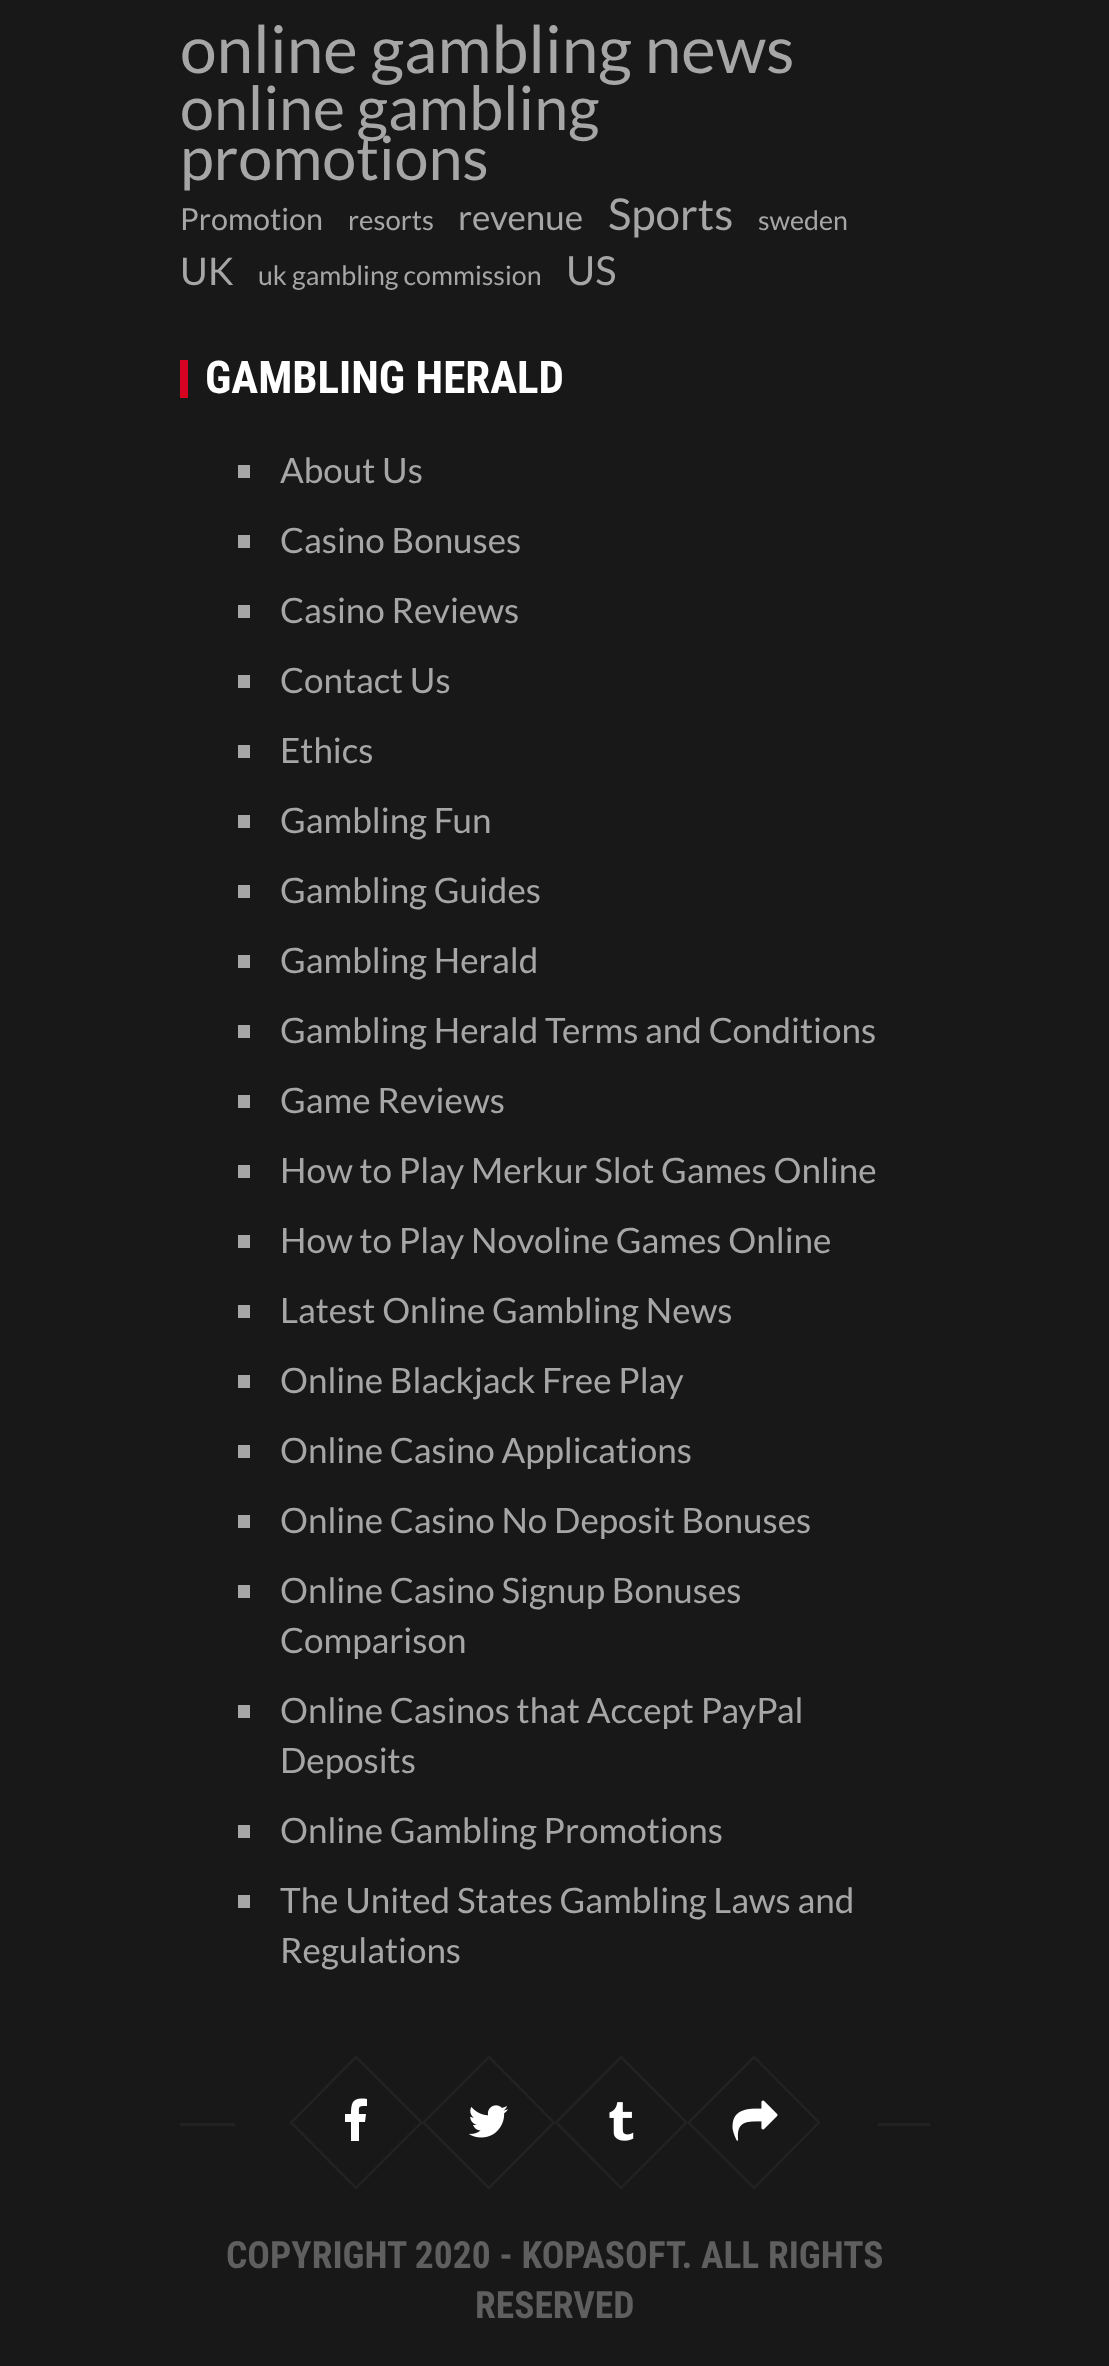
<svg xmlns="http://www.w3.org/2000/svg" width="1109" height="2366" viewBox="0 0 1109 2366">
  <rect width="100%" height="100%" fill="#181818"/>
  <path d="M180 360h8v38H180z" fill="#d50321"/>
  <path d="M238 465h12v13H238z" fill="#a6a6a6"/>
  <path d="M238 535h12v13H238z" fill="#a6a6a6"/>
  <path d="M238 605h12v13H238z" fill="#a6a6a6"/>
  <path d="M238 675h12v13H238z" fill="#a6a6a6"/>
  <path d="M238 745h12v13H238z" fill="#a6a6a6"/>
  <path d="M238 815h12v13H238z" fill="#a6a6a6"/>
  <path d="M238 885h12v13H238z" fill="#a6a6a6"/>
  <path d="M238 955h12v13H238z" fill="#a6a6a6"/>
  <path d="M238 1025h12v13H238z" fill="#a6a6a6"/>
  <path d="M238 1095h12v13H238z" fill="#a6a6a6"/>
  <path d="M238 1165h12v13H238z" fill="#a6a6a6"/>
  <path d="M238 1235h12v13H238z" fill="#a6a6a6"/>
  <path d="M238 1305h12v13H238z" fill="#a6a6a6"/>
  <path d="M238 1375h12v13H238z" fill="#a6a6a6"/>
  <path d="M238 1445h12v13H238z" fill="#a6a6a6"/>
  <path d="M238 1515h12v13H238z" fill="#a6a6a6"/>
  <path d="M238 1585h12v13H238z" fill="#a6a6a6"/>
  <path d="M238 1705h12v13H238z" fill="#a6a6a6"/>
  <path d="M238 1825h12v13H238z" fill="#a6a6a6"/>
  <path d="M238 1895h12v13H238z" fill="#a6a6a6"/>
  <path d="M180 2123h750v3H180z" fill="#222"/>
  <path d="M235 2123h643v3H235z" fill="#181818"/>
  <path d="M356 2057L421.5 2122.5L356 2188L291 2122.5Z" fill="none" stroke="#222" stroke-width="2.5"/>
  <path d="M345 2122V2114H351C351 2102 353 2097 367 2099V2106C358 2106 359 2106 359 2114H366L365 2122H359V2141H351V2122Z" fill="#fff"/>
  <path d="M489 2057L554 2122.5L489 2188L423.5 2122.5Z" fill="none" stroke="#222" stroke-width="2.5"/>
  <image x="468" y="2105" width="40" height="33" href="img/1.png"/>
  <path d="M621 2057L686.5 2122.5L621 2188L556 2122.5Z" fill="none" stroke="#222" stroke-width="2.5"/>
  <image x="609" y="2102" width="25" height="39" href="img/2.png"/>
  <path d="M754 2057L819 2122.5L754 2188L688.5 2122.5Z" fill="none" stroke="#222" stroke-width="2.5"/>
  <image x="732" y="2100" width="46" height="41" href="img/3.png"/>
  <text x="180" y="73" font-family="Lato" font-size="65.75" fill="#a6a6a6">online gambling news</text>
  <g font-family="Lato" font-size="61" fill="#a6a6a6">
    <text x="180" y="130">online gambling</text>
    <text x="180" y="180">promotions</text>
  </g>
  <text x="180" y="230" font-family="Lato" font-size="30.5" fill="#a6a6a6">Promotion</text>
  <text x="348" y="230" font-family="Lato" font-size="27.5" fill="#a6a6a6">resorts</text>
  <text x="458" y="230" font-family="Lato" font-size="35" fill="#a6a6a6">revenue</text>
  <text x="608" y="230" font-family="Lato" font-size="44" fill="#a6a6a6">Sports</text>
  <text x="758" y="230" font-family="Lato" font-size="26.75" fill="#a6a6a6">sweden</text>
  <text x="180" y="285" font-family="Lato" font-size="38" fill="#a6a6a6">UK</text>
  <text x="258" y="285" font-family="Lato" font-size="26.75" fill="#a6a6a6">uk gambling commission</text>
  <text x="566" y="285" font-family="Lato" font-size="40" fill="#a6a6a6">US</text>
  <text x="205" y="393" font-family="Roboto Condensed" font-size="45" font-weight="bold" fill="#fff">GAMBLING HERALD</text>
  <g font-family="Lato" font-size="35" fill="#a6a6a6">
    <text x="280" y="483">About Us</text>
    <text x="280" y="553">Casino Bonuses</text>
    <text x="280" y="623">Casino Reviews</text>
    <text x="280" y="693">Contact Us</text>
    <text x="280" y="763">Ethics</text>
    <text x="280" y="833">Gambling Fun</text>
    <text x="280" y="903">Gambling Guides</text>
    <text x="280" y="973">Gambling Herald</text>
    <text x="280" y="1043">Gambling Herald Terms and Conditions</text>
    <text x="280" y="1113">Game Reviews</text>
    <text x="280" y="1183">How to Play Merkur Slot Games Online</text>
    <text x="280" y="1253">How to Play Novoline Games Online</text>
    <text x="280" y="1323">Latest Online Gambling News</text>
    <text x="280" y="1393">Online Blackjack Free Play</text>
    <text x="280" y="1463">Online Casino Applications</text>
    <text x="280" y="1533">Online Casino No Deposit Bonuses</text>
    <text x="280" y="1603">Online Casino Signup Bonuses</text>
    <text x="280" y="1653">Comparison</text>
    <text x="280" y="1723">Online Casinos that Accept PayPal</text>
    <text x="280" y="1773">Deposits</text>
    <text x="280" y="1843">Online Gambling Promotions</text>
    <text x="280" y="1913">The United States Gambling Laws and</text>
    <text x="280" y="1963">Regulations</text>
  </g>
  <g font-family="Roboto Condensed" font-size="37.5" font-weight="bold" fill="#5f5f5f">
    <text x="226" y="2268">COPYRIGHT 2020 - KOPASOFT. ALL RIGHTS</text>
    <text x="475" y="2318">RESERVED</text>
  </g>
</svg>
